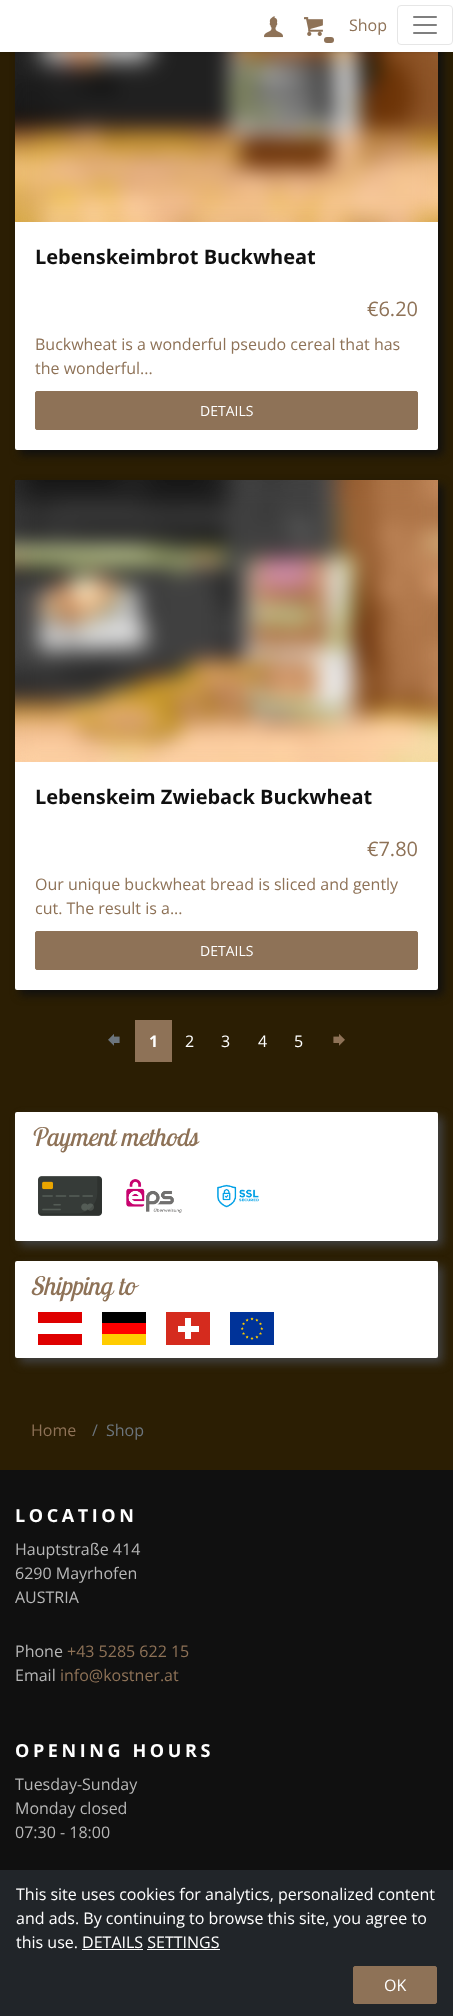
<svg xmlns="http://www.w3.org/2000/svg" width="453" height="2016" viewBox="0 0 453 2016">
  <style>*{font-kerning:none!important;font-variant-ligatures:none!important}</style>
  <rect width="100%" height="100%" fill="#2b1e03"/>
  <rect x="20" y="-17" width="423" height="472" rx="2" fill="#101010" filter="blur(5px)"/>
  <rect x="15" y="-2" width="423" height="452" rx="2" fill="#fff"/>
  <image x="15" y="52" width="423" height="170" href="img/4.png"/>
  <path d="M0 1h453v52H0z" fill="#00000017" filter="blur(1.5px)"/>
  <path d="M0 0h453v52H0z" fill="#fff"/>
  <image x="264" y="16" width="19" height="22" href="img/1.png"/>
  <image x="304" y="17" width="19" height="19" href="img/2.png"/>
  <rect x="324" y="37" width="10" height="6" rx="3" fill="#8e7257"/>
  <rect x="397.5" y="5.5" width="55" height="39" rx="3.5" fill="none" stroke="#e6e6e6"/>
  <image x="413" y="16" width="24" height="18" href="img/3.png"/>
  <rect x="35.5" y="391.5" width="382" height="38" rx="1.5" fill="#8e7257" stroke="#8e7257"/>
  <rect x="20" y="485" width="423" height="510" rx="2" fill="#101010" filter="blur(5px)"/>
  <rect x="15" y="480" width="423" height="510" rx="2" fill="#fff"/>
  <image x="15" y="480" width="423" height="282" href="img/5.png"/>
  <rect x="35.5" y="931.5" width="382" height="38" rx="1.5" fill="#8e7257" stroke="#8e7257"/>
  <image x="108" y="1034" width="12" height="12" href="img/6.png"/>
  <path d="M135 1020h37v42H135z" fill="#8e7257"/>
  <image x="333" y="1034" width="12" height="12" href="img/7.png"/>
  <rect x="20" y="1117" width="423" height="129" rx="2" fill="#404040" filter="blur(5px)"/>
  <rect x="15" y="1112" width="423" height="129" rx="2" fill="#fff"/>
  <image x="38" y="1176" width="64" height="40" href="img/8.png"/>
  <image x="126" y="1179" width="56" height="34" href="img/9.png"/>
  <image x="217" y="1184" width="42" height="24" href="img/10.png"/>
  <rect x="20" y="1266" width="423" height="97" rx="2" fill="#404040" filter="blur(5px)"/>
  <rect x="15" y="1261" width="423" height="97" rx="2" fill="#fff"/>
  <path d="M82 1345H38V1334H82ZM82 1323H38V1312H82Z" fill="#df0000" fill-rule="evenodd"/>
  <path d="M102 1312h44v11H102z" fill="#000"/>
  <path d="M166 1312h44v33H166z" fill="#d52b1e"/>
  <image x="230" y="1312" width="44" height="33" href="img/11.png"/>
  <path d="M102 1323h44v11H102z" fill="#f00"/>
  <path d="M178 1326h21v6H178z" fill="#fff"/>
  <path d="M185 1318h6v21H185z" fill="#fff"/>
  <path d="M102 1334h44v11H102z" fill="#fc0"/>
  <path d="M0 1470h453v400H0z" fill="#101010"/>
  <path d="M0 1870h453v146H0z" fill="#212529"/>
  <path d="M82 1949h61v1H82z" fill="#fff"/>
  <path d="M147 1949h73v1H147z" fill="#fff"/>
  <rect x="353.5" y="1966.5" width="83" height="37" rx="1.5" fill="#8e7257" stroke="#8e7257"/>
  <text x="349" y="31" font-family="Open Sans" font-size="16" fill="#8e7257">Shop</text>
  <text x="35" y="264" font-family="Open Sans" font-size="20" font-weight="bold" fill="#101010">Lebenskeimbrot Buckwheat</text>
  <text x="367" y="316" font-family="Open Sans" font-size="20" fill="#8e7257">€6.20</text>
  <g font-family="Open Sans" font-size="16" fill="#8e7257">
    <text x="35" y="350">Buckwheat is a wonderful pseudo cereal that has</text>
    <text x="35" y="374">the wonderful...</text>
  </g>
  <text x="200" y="416" font-family="Open Sans" font-size="14" fill="#fff">DETAILS</text>
  <text x="35" y="804" font-family="Open Sans" font-size="20" font-weight="bold" fill="#101010">Lebenskeim Zwieback Buckwheat</text>
  <text x="367" y="856" font-family="Open Sans" font-size="20" fill="#8e7257">€7.80</text>
  <g font-family="Open Sans" font-size="16" fill="#8e7257">
    <text x="35" y="890">Our unique buckwheat bread is sliced and gently</text>
    <text x="35" y="914">cut. The result is a...</text>
  </g>
  <text x="200" y="956" font-family="Open Sans" font-size="14" fill="#fff">DETAILS</text>
  <text x="149" y="1047" font-family="Open Sans" font-size="16" font-weight="bold" fill="#fff">1</text>
  <g font-family="Open Sans" font-size="16" fill="#fff">
    <text x="185" y="1047">2</text>
    <text x="221" y="1047">3</text>
    <text x="258" y="1047">4</text>
    <text x="294" y="1047">5</text>
  </g>
  <g font-family="Lobster Two" font-size="25.5" font-style="italic" fill="#8e7257">
    <text x="30" y="1146">Payment methods</text>
    <text x="30" y="1295">Shipping to</text>
  </g>
  <text x="31" y="1436" font-family="Open Sans" font-size="16" fill="#8e7257">Home</text>
  <g font-family="Open Sans" font-size="16" fill="#6c757d">
    <text x="92" y="1436">/</text>
    <text x="106" y="1436">Shop</text>
  </g>
  <text x="15" y="1522" font-family="Open Sans" font-size="18" font-weight="bold" letter-spacing="3.6" fill="#fff">LOCATION</text>
  <g font-family="Open Sans" font-size="16" fill="#b7b7b7">
    <text x="15" y="1555">Hauptstraße 414</text>
    <text x="15" y="1579">6290 Mayrhofen</text>
    <text x="15" y="1603">AUSTRIA</text>
    <text x="15" y="1657">Phone</text>
  </g>
  <text x="67" y="1657" font-family="Open Sans" font-size="16" fill="#8e7257">+43 5285 622 15</text>
  <text x="15" y="1681" font-family="Open Sans" font-size="16" fill="#b7b7b7">Email</text>
  <text x="60" y="1681" font-family="Open Sans" font-size="16" fill="#8e7257">info@kostner.at</text>
  <text x="15" y="1757" font-family="Open Sans" font-size="18" font-weight="bold" letter-spacing="3.6" fill="#fff">OPENING HOURS</text>
  <g font-family="Open Sans" font-size="16" fill="#b7b7b7">
    <text x="15" y="1790">Tuesday-Sunday</text>
    <text x="15" y="1814">Monday closed</text>
    <text x="15" y="1838">07:30 - 18:00</text>
  </g>
  <g font-family="Open Sans" font-size="16" fill="#fff">
    <text x="16" y="1900">This site uses cookies for analytics, personalized content</text>
    <text x="16" y="1924">and ads. By continuing to browse this site, you agree to</text>
    <text x="16" y="1948">this use. DETAILS SETTINGS</text>
    <text x="384" y="1991">OK</text>
  </g>
</svg>
